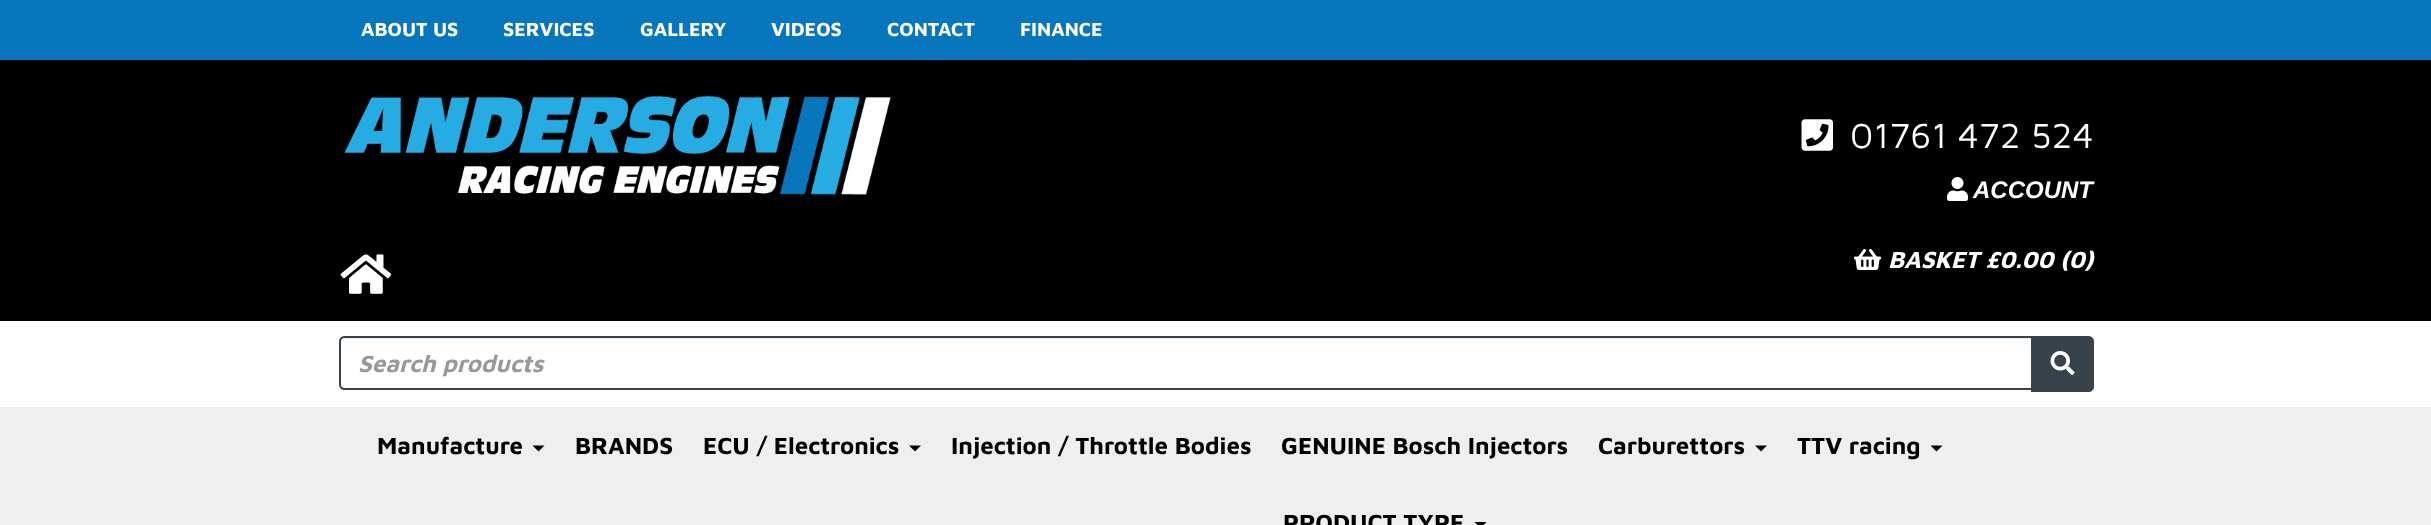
<svg xmlns="http://www.w3.org/2000/svg" width="2431" height="525" viewBox="0 0 2431 525">
  <rect width="100%" height="100%" fill="#fff"/>
  <path d="M0 0h2431v60H0z" fill="#0776bc"/>
  <path d="M0 60h2431v261H0z" fill="#000"/>
  <image x="344" y="95" width="547" height="100" href="img/1.png"/>
  <image x="340" y="254" width="52" height="40" href="img/2.png"/>
  <image x="1801" y="119" width="32" height="32" href="img/3.png"/>
  <image x="1947" y="177" width="21" height="24" href="img/4.png"/>
  <image x="1854" y="249" width="27" height="21" href="img/5.png"/>
  <path d="M344 339H2031V338H344C343 338 342 339 341 340Z" fill="#ececec"/>
  <path d="M344 337H2032V389H344C342 389 340 387 340 385V341C340 339 342 337 344 337Z" fill="none" stroke="#37424a" stroke-width="2"/>
  <path d="M2032 337H2089C2091 337 2093 339 2093 341V387C2093 389 2091 391 2089 391H2032Z" fill="#37424a" stroke="#37424a" stroke-width="2"/>
  <image x="2050" y="351" width="25" height="24" href="img/6.png"/>
  <path d="M0 407h2431v118H0z" fill="#efefef"/>
  <path d="M532.5 445.5H544.5L538.5 451.5Z" fill="#000"/>
  <path d="M909 445.5H921L915 451.5Z" fill="#000"/>
  <path d="M1755 445.5H1767L1761 451.5Z" fill="#000"/>
  <path d="M1930.5 445.5H1942.5L1936.5 451.5Z" fill="#000"/>
  <path d="M1474.5 522H1486.5L1480.5 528Z" fill="#000"/>
  <g font-family="Maven Pro" font-size="19.5" font-weight="bold" fill="#fff">
    <text x="361" y="36">ABOUT US</text>
    <text x="503" y="36">SERVICES</text>
    <text x="640" y="36">GALLERY</text>
    <text x="771" y="36">VIDEOS</text>
    <text x="887" y="36">CONTACT</text>
    <text x="1020" y="36">FINANCE</text>
  </g>
  <text x="1850" y="148" font-family="Maven Pro" font-size="36" fill="#fff">01761 472 524</text>
  <text x="1973" y="198" font-family="Liberation Sans" font-size="24" font-weight="bold" font-style="italic" fill="#fff">ACCOUNT</text>
  <text x="1888" y="268" font-family="Maven Pro" font-size="24" font-weight="bold" font-style="italic" fill="#fff">BASKET £0.00 (0)</text>
  <text x="358" y="372" font-family="Maven Pro" font-size="24" font-weight="bold" font-style="italic" fill="#999">Search products</text>
  <g font-family="Maven Pro" font-size="24" font-weight="bold" fill="#000">
    <text x="377" y="454">Manufacture</text>
    <text x="575" y="454">BRANDS</text>
    <text x="703" y="454">ECU / Electronics</text>
    <text x="951" y="454">Injection / Throttle Bodies</text>
    <text x="1281" y="454">GENUINE Bosch Injectors</text>
    <text x="1598" y="454">Carburettors</text>
    <text x="1797" y="454">TTV racing</text>
    <text x="1283" y="531">PRODUCT TYPE</text>
  </g>
</svg>
